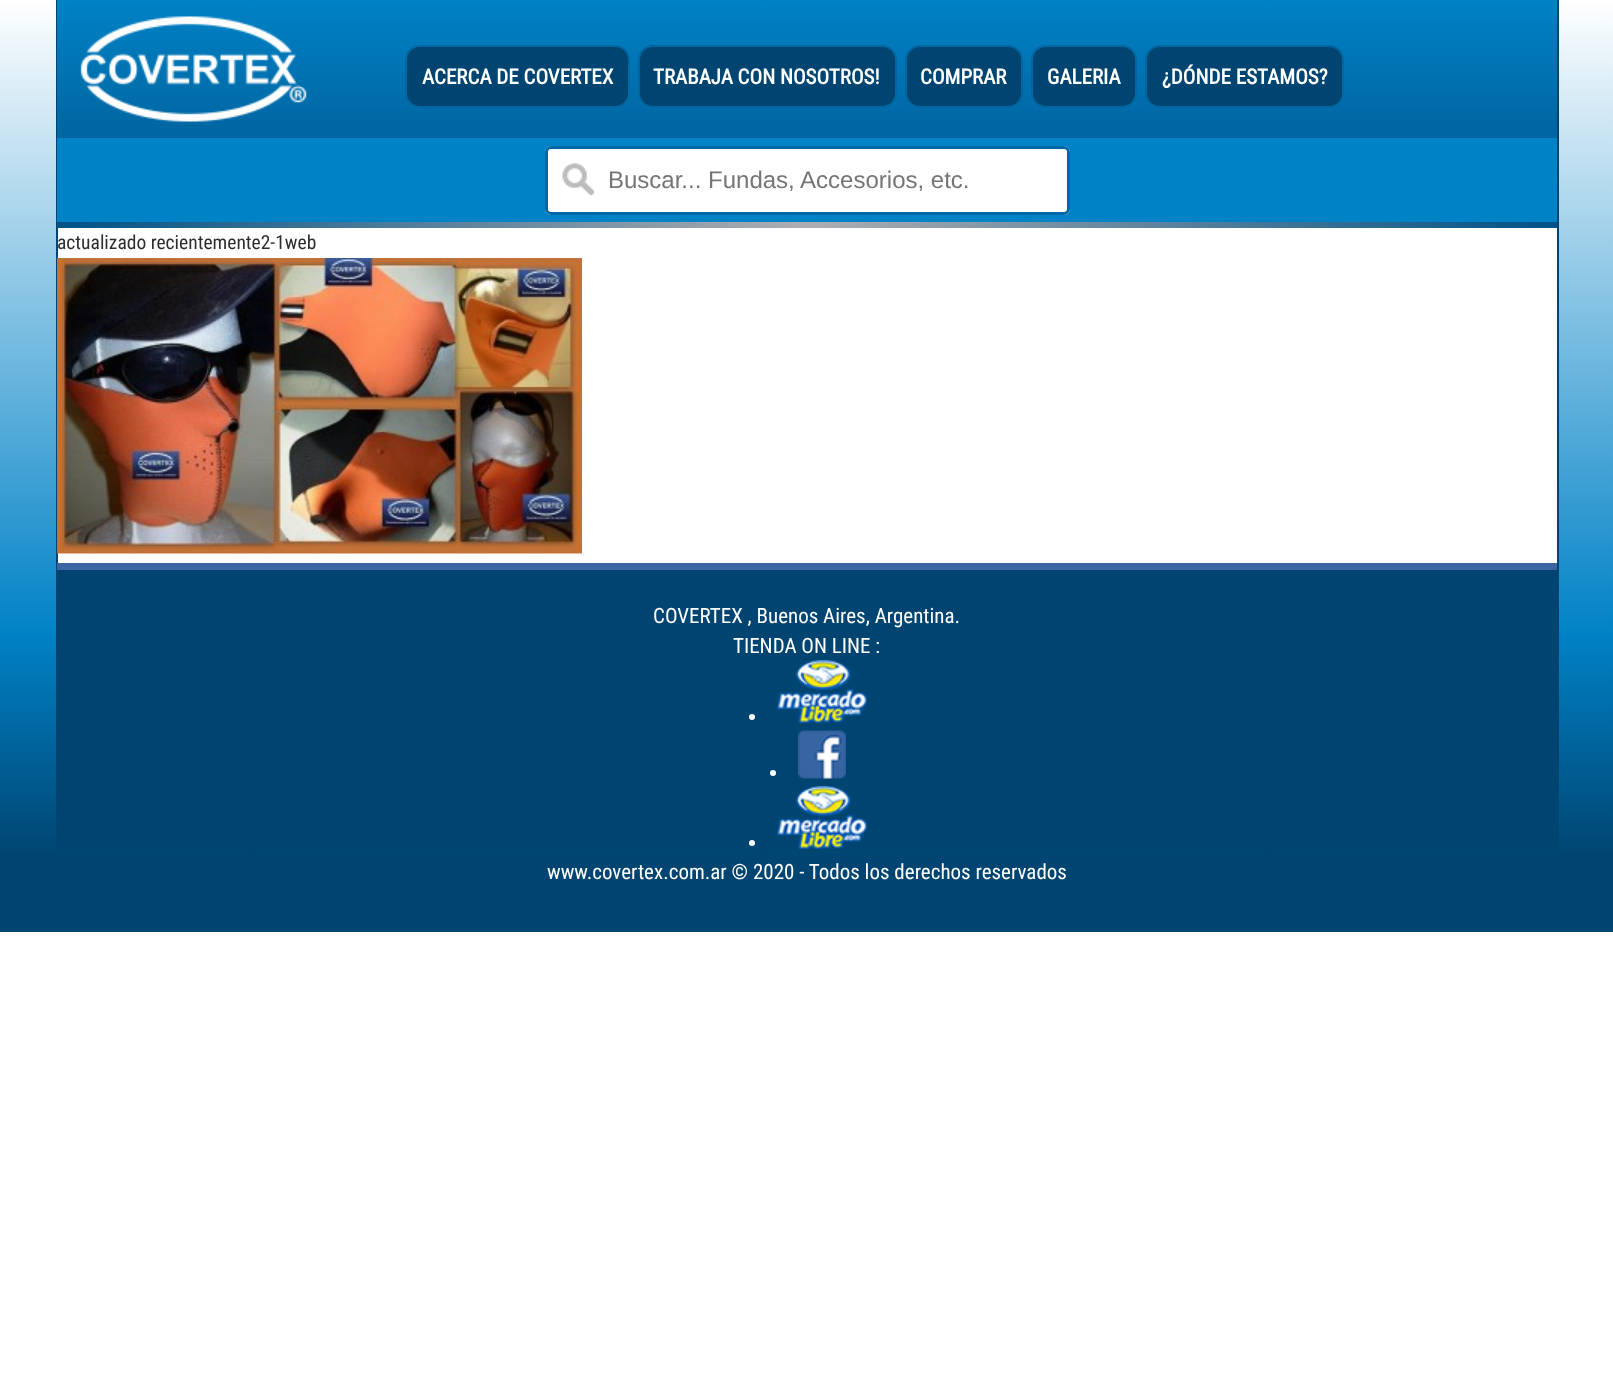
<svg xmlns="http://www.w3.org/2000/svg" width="1613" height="1374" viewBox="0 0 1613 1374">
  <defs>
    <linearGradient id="g1" gradientUnits="userSpaceOnUse" x1="807" y1="0" x2="807" y2="932"><stop offset="0" stop-color="#fff"/><stop offset="0.68" stop-color="#0082c6"/><stop offset="0.92" stop-color="#004571"/></linearGradient>
    <linearGradient id="g2" gradientUnits="userSpaceOnUse" x1="807" y1="0" x2="807" y2="228"><stop offset="0" stop-color="#0082c6"/><stop offset="1" stop-color="#005287"/></linearGradient>
    <linearGradient id="g3" gradientUnits="userSpaceOnUse" x1="57" y1="225" x2="1557" y2="225"><stop offset="0" stop-color="#005287"/><stop offset="0.5" stop-color="#aeaeb2"/><stop offset="1" stop-color="#005287"/></linearGradient>
  </defs>
  <rect width="100%" height="100%" fill="#fff"/>
  <path d="M0 6h1613v926H0z" fill="url(#g1)"/>
  <path d="M58 228h1499v335H58z" fill="#fff"/>
  <path d="M1557 0h2v851H1557z" fill="#004571"/>
  <path d="M56 0h2v851H56z" fill="#004571"/>
  <path d="M57 0h1500v138H57z" fill="url(#g2)"/>
  <image x="80" y="16" width="227" height="106" href="img/1.png"/>
  <rect x="406" y="46" width="223" height="61" rx="14" fill="#004571" stroke="#0066a1" stroke-width="2"/>
  <rect x="639" y="46" width="257" height="61" rx="14" fill="#004571" stroke="#0066a1" stroke-width="2"/>
  <rect x="906" y="46" width="116" height="61" rx="14" fill="#004571" stroke="#0066a1" stroke-width="2"/>
  <rect x="1032" y="46" width="104" height="61" rx="14" fill="#004571" stroke="#0066a1" stroke-width="2"/>
  <rect x="1146" y="46" width="197" height="61" rx="14" fill="#004571" stroke="#0066a1" stroke-width="2"/>
  <path d="M57 138h1500v84H57z" fill="#0082c6"/>
  <rect x="545" y="146" width="525" height="69" rx="6" fill="#fff"/>
  <image x="562" y="163" width="32" height="32" href="img/2.png"/>
  <rect x="546.5" y="147.5" width="522" height="66" rx="4.5" fill="none" stroke="#0068a4" stroke-width="3"/>
  <path d="M57 222h1500v6H57z" fill="url(#g3)"/>
  <image x="57" y="258" width="525" height="296" href="img/3.png"/>
  <path d="M58 570h1499v281H58z" fill="#004571"/>
  <path d="M57 563h1500v7H57z" fill="#3c66a1"/>
  <circle cx="752" cy="717" r="3" fill="#fff"/>
  <image x="777" y="660" width="90" height="63" href="img/4.png"/>
  <circle cx="773" cy="773" r="3" fill="#fff"/>
  <image x="798" y="730" width="48" height="49" href="img/5.png"/>
  <circle cx="752" cy="843" r="3" fill="#fff"/>
  <image x="777" y="786" width="90" height="63" href="img/4.png"/>
  <g font-family="Roboto Condensed" font-size="21" font-weight="bold" fill="#fff">
    <text x="422" y="84">ACERCA DE COVERTEX</text>
    <text x="653" y="84">TRABAJA CON NOSOTROS!</text>
    <text x="920" y="84">COMPRAR</text>
    <text x="1047" y="84">GALERIA</text>
    <text x="1162" y="84">¿DÓNDE ESTAMOS?</text>
  </g>
  <text x="608" y="188" font-family="Liberation Sans" font-size="24" fill="#757575">Buscar... Fundas, Accesorios, etc.</text>
  <text x="57" y="249" font-family="Roboto Condensed" font-size="19.5" fill="#2d2d2d">actualizado recientemente2-1web</text>
  <g font-family="Roboto Condensed" font-size="21" fill="#fff">
    <text x="653" y="623">COVERTEX , Buenos Aires, Argentina.</text>
    <text x="733" y="653">TIENDA ON LINE :</text>
    <text x="547" y="879">www.covertex.com.ar © 2020 - Todos los derechos reservados</text>
  </g>
</svg>
